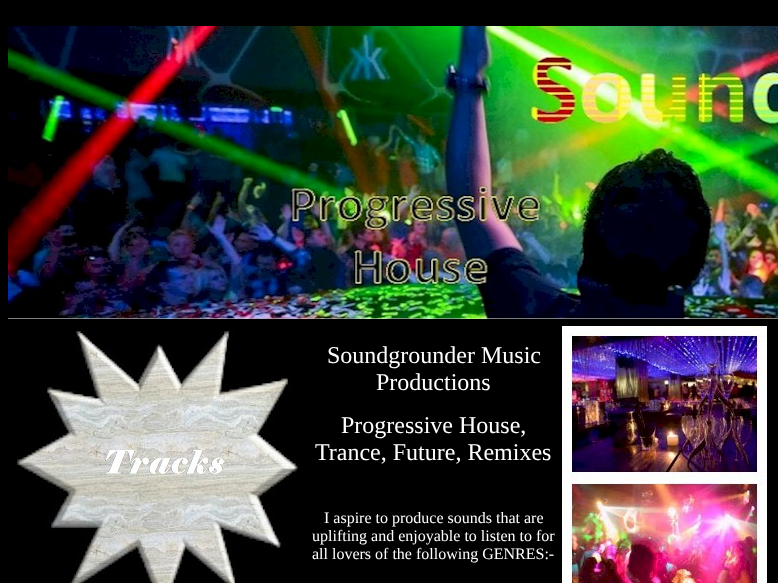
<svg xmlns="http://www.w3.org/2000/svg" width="778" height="583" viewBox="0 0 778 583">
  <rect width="100%" height="100%" fill="#000"/>
  <image x="8" y="26" width="770" height="293" href="img/1.png"/>
  <image x="12" y="326" width="288" height="257" href="img/2.png"/>
  <image x="562" y="326" width="205" height="257" href="img/3.png"/>
  <g font-family="Liberation Serif" font-size="24" fill="#fff">
    <text x="327" y="363">Soundgrounder Music</text>
    <text x="376" y="390">Productions</text>
    <text x="341" y="433">Progressive House,</text>
    <text x="315" y="460">Trance, Future, Remixes</text>
  </g>
  <g font-family="Liberation Serif" font-size="16" fill="#fff">
    <text x="324" y="523">I aspire to produce sounds that are</text>
    <text x="312" y="541">uplifting and enjoyable to listen to for</text>
    <text x="312" y="559">all lovers of the following GENRES:-</text>
  </g>
</svg>
